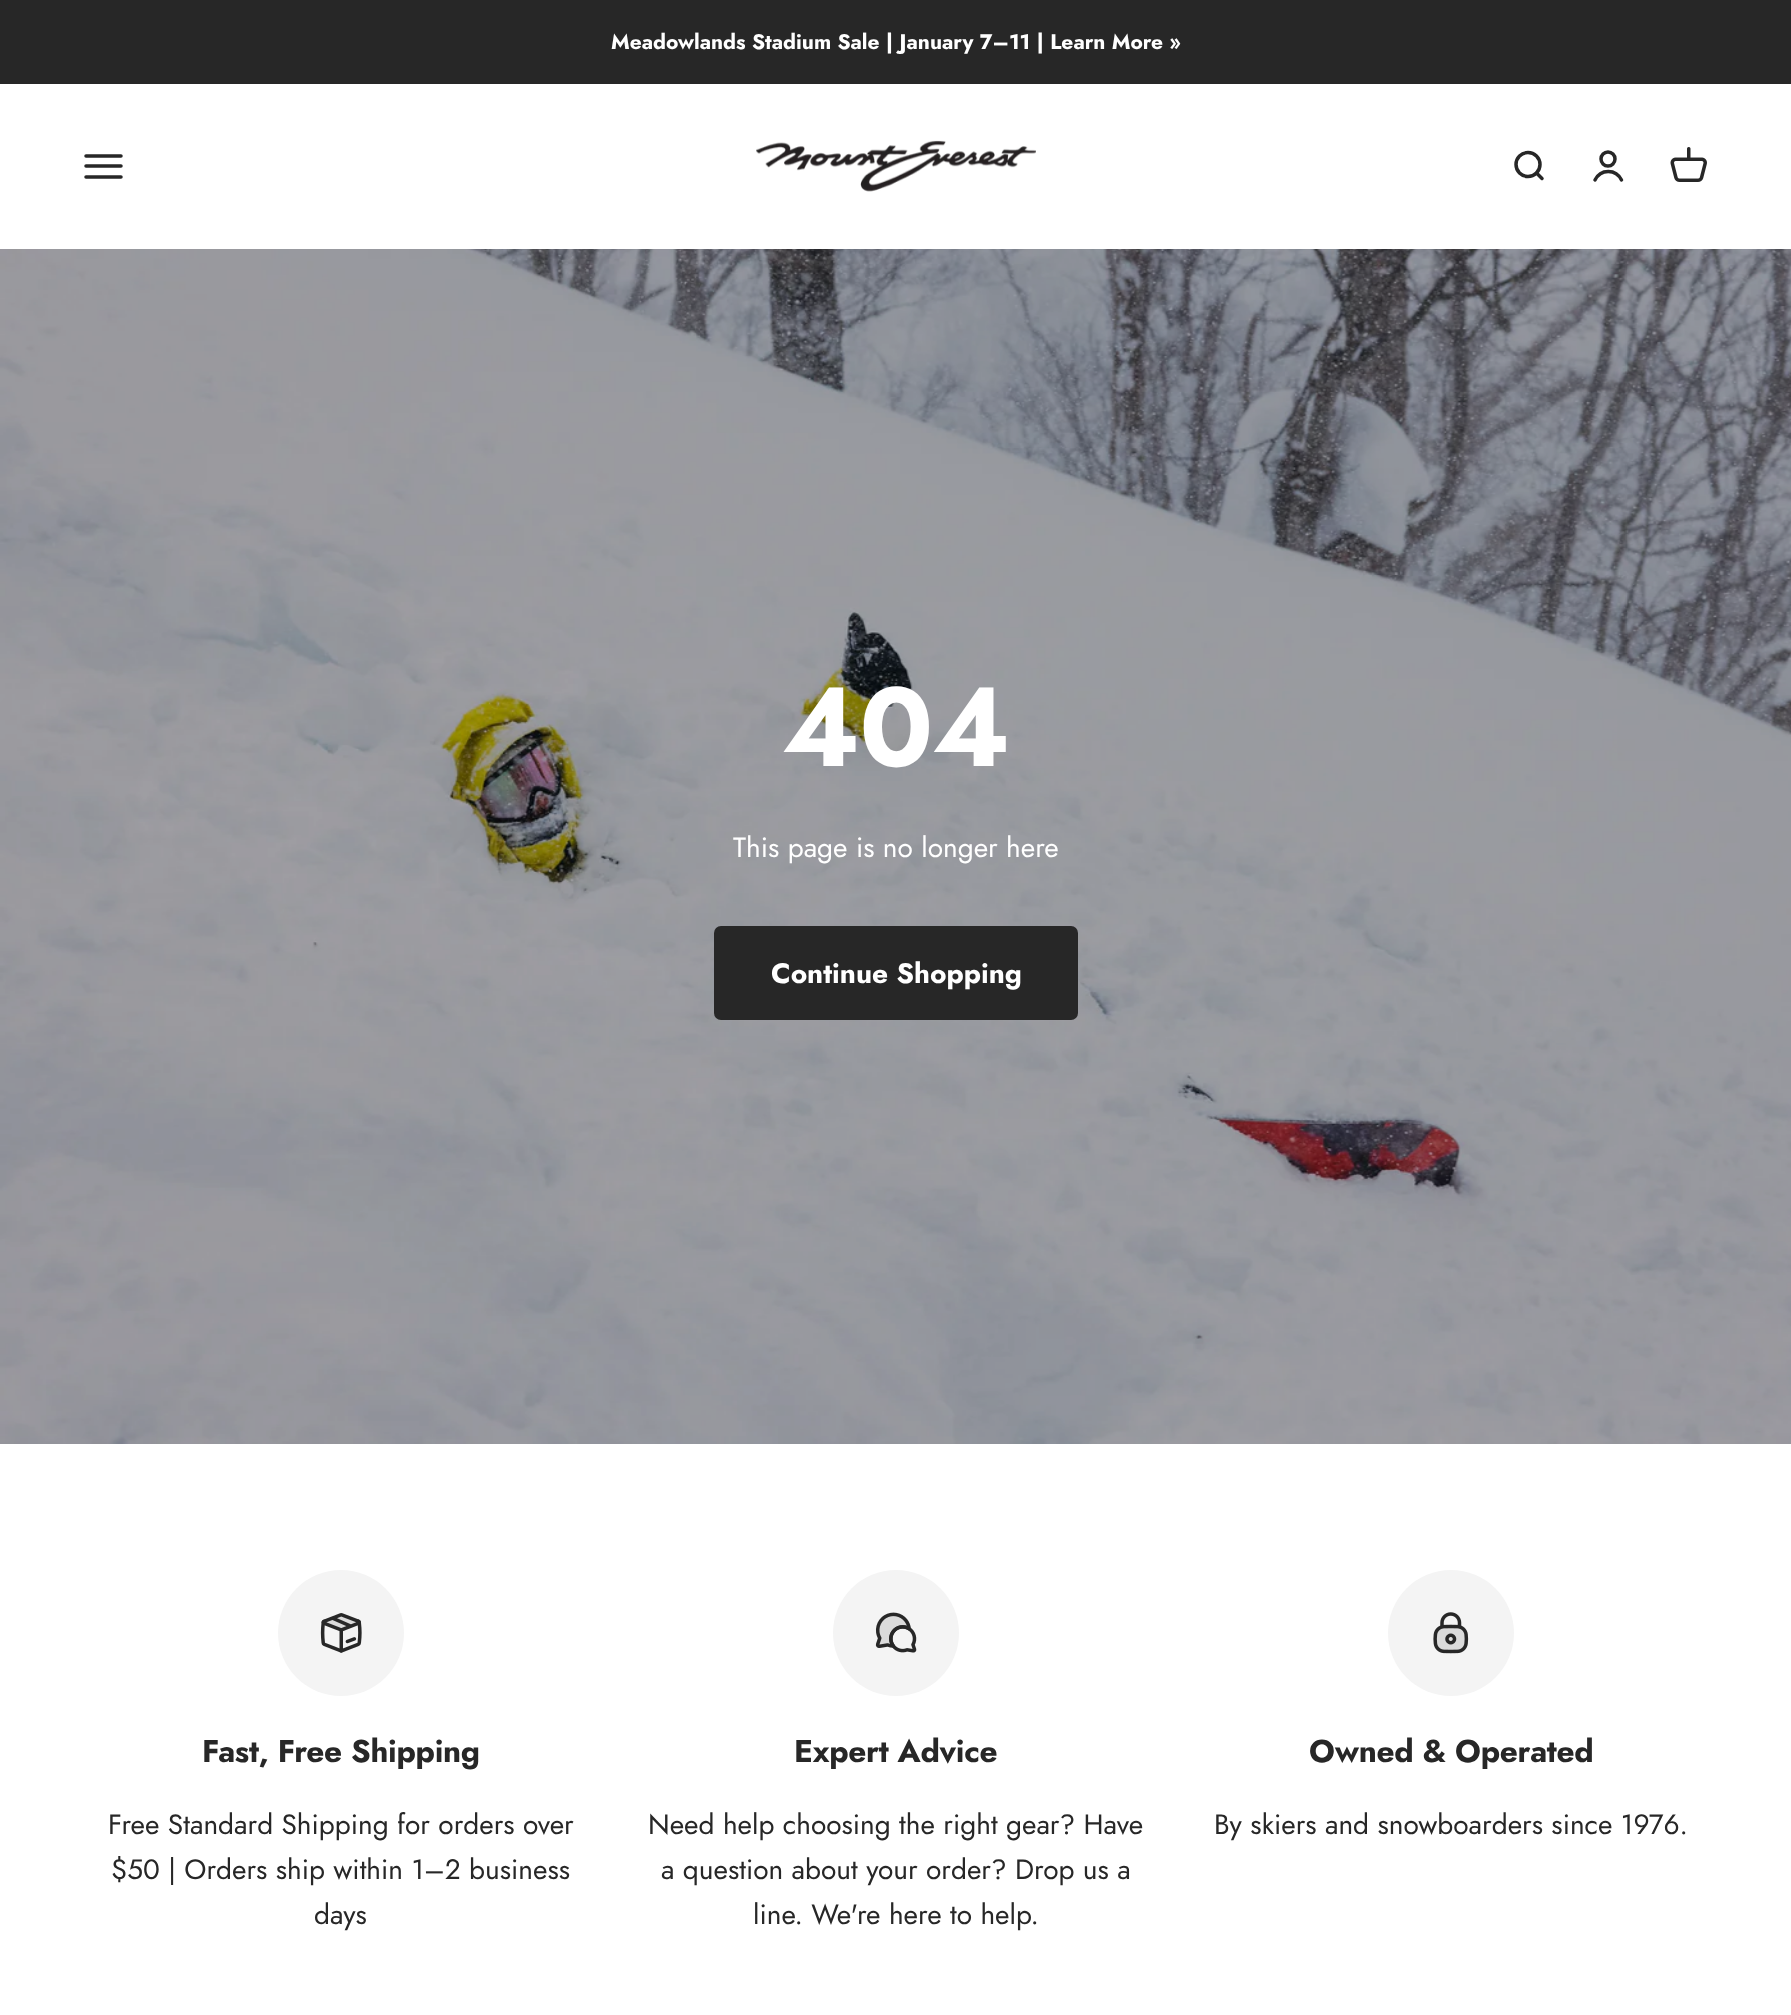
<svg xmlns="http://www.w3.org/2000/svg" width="1791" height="2015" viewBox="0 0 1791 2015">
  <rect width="100%" height="100%" fill="#fff"/>
  <path d="M0 0h1791v84H0z" fill="#272727"/>
  <path d="M86 156H121M86 166H121M86 177H121" fill="none" stroke="#272727" stroke-width="3.5" stroke-linecap="round"/>
  <image x="756" y="140" width="280" height="52" href="img/1.png"/>
  <circle cx="1528" cy="164.5" r="12" fill="none" stroke="#272727" stroke-width="3.5"/>
  <path d="M1536.5 173L1542 178.5" fill="none" stroke="#272727" stroke-width="3.5" stroke-linecap="round" stroke-linejoin="round"/>
  <circle cx="1608" cy="159" r="7" fill="none" stroke="#272727" stroke-width="3.5"/>
  <path d="M1595 180C1600.5 168.5 1616 168.5 1621.5 180" fill="none" stroke="#272727" stroke-width="3.5" stroke-linecap="round"/>
  <image x="1670" y="147" width="37" height="35" href="img/2.png"/>
  <image x="0" y="249" width="1791" height="1195" href="img/3.png"/>
  <rect x="714" y="926" width="364" height="94" rx="7" fill="#272727"/>
  <circle cx="341" cy="1633" r="63" fill="#f4f4f4"/>
  <image x="320" y="1613" width="42" height="40" href="img/4.png"/>
  <circle cx="896" cy="1633" r="63" fill="#f4f4f4"/>
  <image x="875" y="1612" width="42" height="41" href="img/5.png"/>
  <circle cx="1451" cy="1633" r="63" fill="#f4f4f4"/>
  <image x="1433" y="1612" width="36" height="42" href="img/6.png"/>
  <text x="611" y="49" font-family="Jost" font-size="21" font-weight="bold" fill="#fff">Meadowlands Stadium Sale | January 7–11 | Learn More »</text>
  <text x="782" y="766" font-family="Jost" font-size="112" font-weight="bold" letter-spacing="-1" fill="#fff">404</text>
  <text x="733" y="857" font-family="Jost" font-size="28" fill="#fff">This page is no longer here</text>
  <text x="771" y="983" font-family="Jost" font-size="28" font-weight="bold" fill="#fff">Continue Shopping</text>
  <text x="202" y="1762" font-family="Jost" font-size="31.5" font-weight="bold" letter-spacing="-0.3" fill="#272727">Fast, Free Shipping</text>
  <g font-family="Jost" font-size="28" fill="#272727">
    <text x="108" y="1834">Free Standard Shipping for orders over</text>
    <text x="111" y="1879">$50 | Orders ship within 1–2 business</text>
    <text x="314" y="1924">days</text>
  </g>
  <text x="794" y="1762" font-family="Jost" font-size="31.5" font-weight="bold" letter-spacing="-0.3" fill="#272727">Expert Advice</text>
  <g font-family="Jost" font-size="28" fill="#272727">
    <text x="648" y="1834">Need help choosing the right gear? Have</text>
    <text x="661" y="1879">a question about your order? Drop us a</text>
    <text x="753" y="1924">line. We're here to help.</text>
  </g>
  <text x="1309" y="1762" font-family="Jost" font-size="31.5" font-weight="bold" letter-spacing="-0.3" fill="#272727">Owned &amp; Operated</text>
  <text x="1214" y="1834" font-family="Jost" font-size="28" fill="#272727">By skiers and snowboarders since 1976.</text>
</svg>
